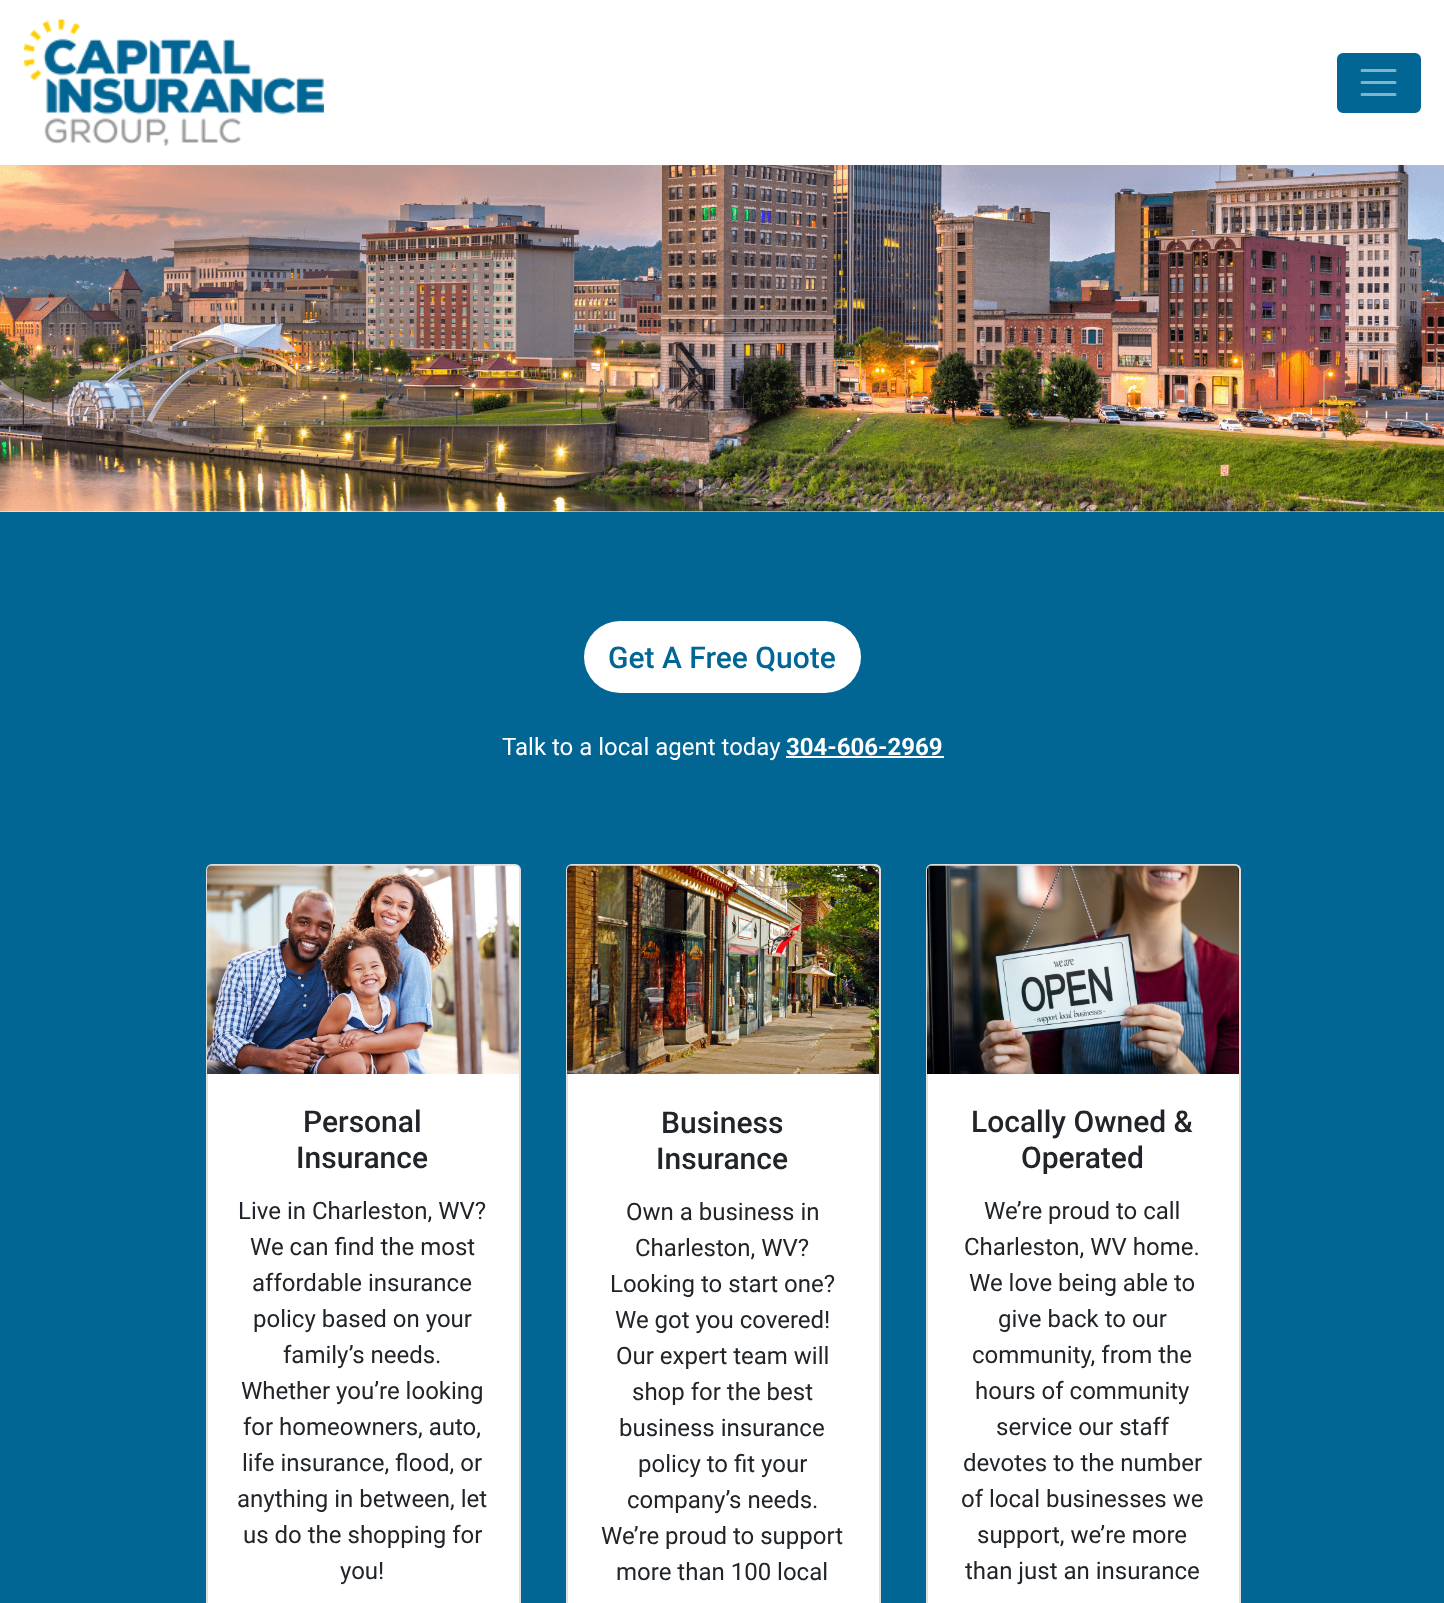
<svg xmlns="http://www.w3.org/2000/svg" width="1444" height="1603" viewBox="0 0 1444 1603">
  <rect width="100%" height="100%" fill="#fff"/>
  <image x="24" y="19" width="300" height="127" href="img/1.png"/>
  <rect x="1338" y="54" width="82" height="58" rx="5" fill="#026695" stroke="#026695" stroke-width="2"/>
  <path d="M1362 70.5H1395M1362 82.5H1395M1362 94.5H1395" fill="none" stroke="#81b3ca" stroke-width="3" stroke-linecap="round"/>
  <image x="0" y="165" width="1444" height="347" href="img/2.png"/>
  <path d="M0 512h1444v1091H0z" fill="#026695"/>
  <rect x="584" y="621" width="277" height="72" rx="36" fill="#fff"/>
  <path d="M786 756h158v2H786z" fill="#fff"/>
  <rect x="206" y="864" width="315" height="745" rx="6" fill="#fff"/>
  <rect x="207" y="865" width="313" height="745" rx="5" fill="none" stroke="#0000001f" stroke-width="2"/>
  <image x="207" y="865" width="312" height="209" href="img/3.png"/>
  <rect x="566" y="864" width="315" height="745" rx="6" fill="#fff"/>
  <rect x="567" y="865" width="313" height="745" rx="5" fill="none" stroke="#0000001f" stroke-width="2"/>
  <image x="567" y="865" width="312" height="209" href="img/4.png"/>
  <rect x="926" y="864" width="315" height="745" rx="6" fill="#fff"/>
  <rect x="927" y="865" width="313" height="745" rx="5" fill="none" stroke="#0000001f" stroke-width="2"/>
  <image x="927" y="865" width="312" height="209" href="img/5.png"/>
  <text x="608" y="668" font-family="Roboto" font-size="30" font-weight="500" fill="#026695">Get A Free Quote</text>
  <text x="502" y="755" font-family="Roboto" font-size="24" fill="#fff">Talk to a local agent today</text>
  <text x="786" y="755" font-family="Roboto" font-size="24" font-weight="bold" fill="#fff">304-606-2969</text>
  <g font-family="Roboto" font-size="30" font-weight="500" fill="#212529">
    <text x="303" y="1132">Personal</text>
    <text x="296" y="1168">Insurance</text>
  </g>
  <g font-family="Roboto" font-size="24" fill="#212529">
    <text x="238" y="1219">Live in Charleston, WV?</text>
    <text x="250" y="1255">We can find the most</text>
    <text x="252" y="1291">affordable insurance</text>
    <text x="253" y="1327">policy based on your</text>
    <text x="283" y="1363">family’s needs.</text>
    <text x="241" y="1399">Whether you’re looking</text>
    <text x="243" y="1435">for homeowners, auto,</text>
    <text x="242" y="1471">life insurance, flood, or</text>
    <text x="237" y="1507">anything in between, let</text>
    <text x="243" y="1543">us do the shopping for</text>
    <text x="340" y="1579">you!</text>
  </g>
  <g font-family="Roboto" font-size="30" font-weight="500" fill="#212529">
    <text x="661" y="1133">Business</text>
    <text x="656" y="1169">Insurance</text>
  </g>
  <g font-family="Roboto" font-size="24" fill="#212529">
    <text x="626" y="1220">Own a business in</text>
    <text x="635" y="1256">Charleston, WV?</text>
    <text x="610" y="1292">Looking to start one?</text>
    <text x="615" y="1328">We got you covered!</text>
    <text x="616" y="1364">Our expert team will</text>
    <text x="632" y="1400">shop for the best</text>
    <text x="619" y="1436">business insurance</text>
    <text x="638" y="1472">policy to fit your</text>
    <text x="627" y="1508">company’s needs.</text>
    <text x="601" y="1544">We’re proud to support</text>
    <text x="616" y="1580">more than 100 local</text>
  </g>
  <g font-family="Roboto" font-size="30" font-weight="500" fill="#212529">
    <text x="971" y="1132">Locally Owned &amp;</text>
    <text x="1021" y="1168">Operated</text>
  </g>
  <g font-family="Roboto" font-size="24" fill="#212529">
    <text x="984" y="1219">We’re proud to call</text>
    <text x="964" y="1255">Charleston, WV home.</text>
    <text x="969" y="1291">We love being able to</text>
    <text x="998" y="1327">give back to our</text>
    <text x="972" y="1363">community, from the</text>
    <text x="975" y="1399">hours of community</text>
    <text x="996" y="1435">service our staff</text>
    <text x="963" y="1471">devotes to the number</text>
    <text x="961" y="1507">of local businesses we</text>
    <text x="977" y="1543">support, we’re more</text>
    <text x="965" y="1579">than just an insurance</text>
  </g>
</svg>
